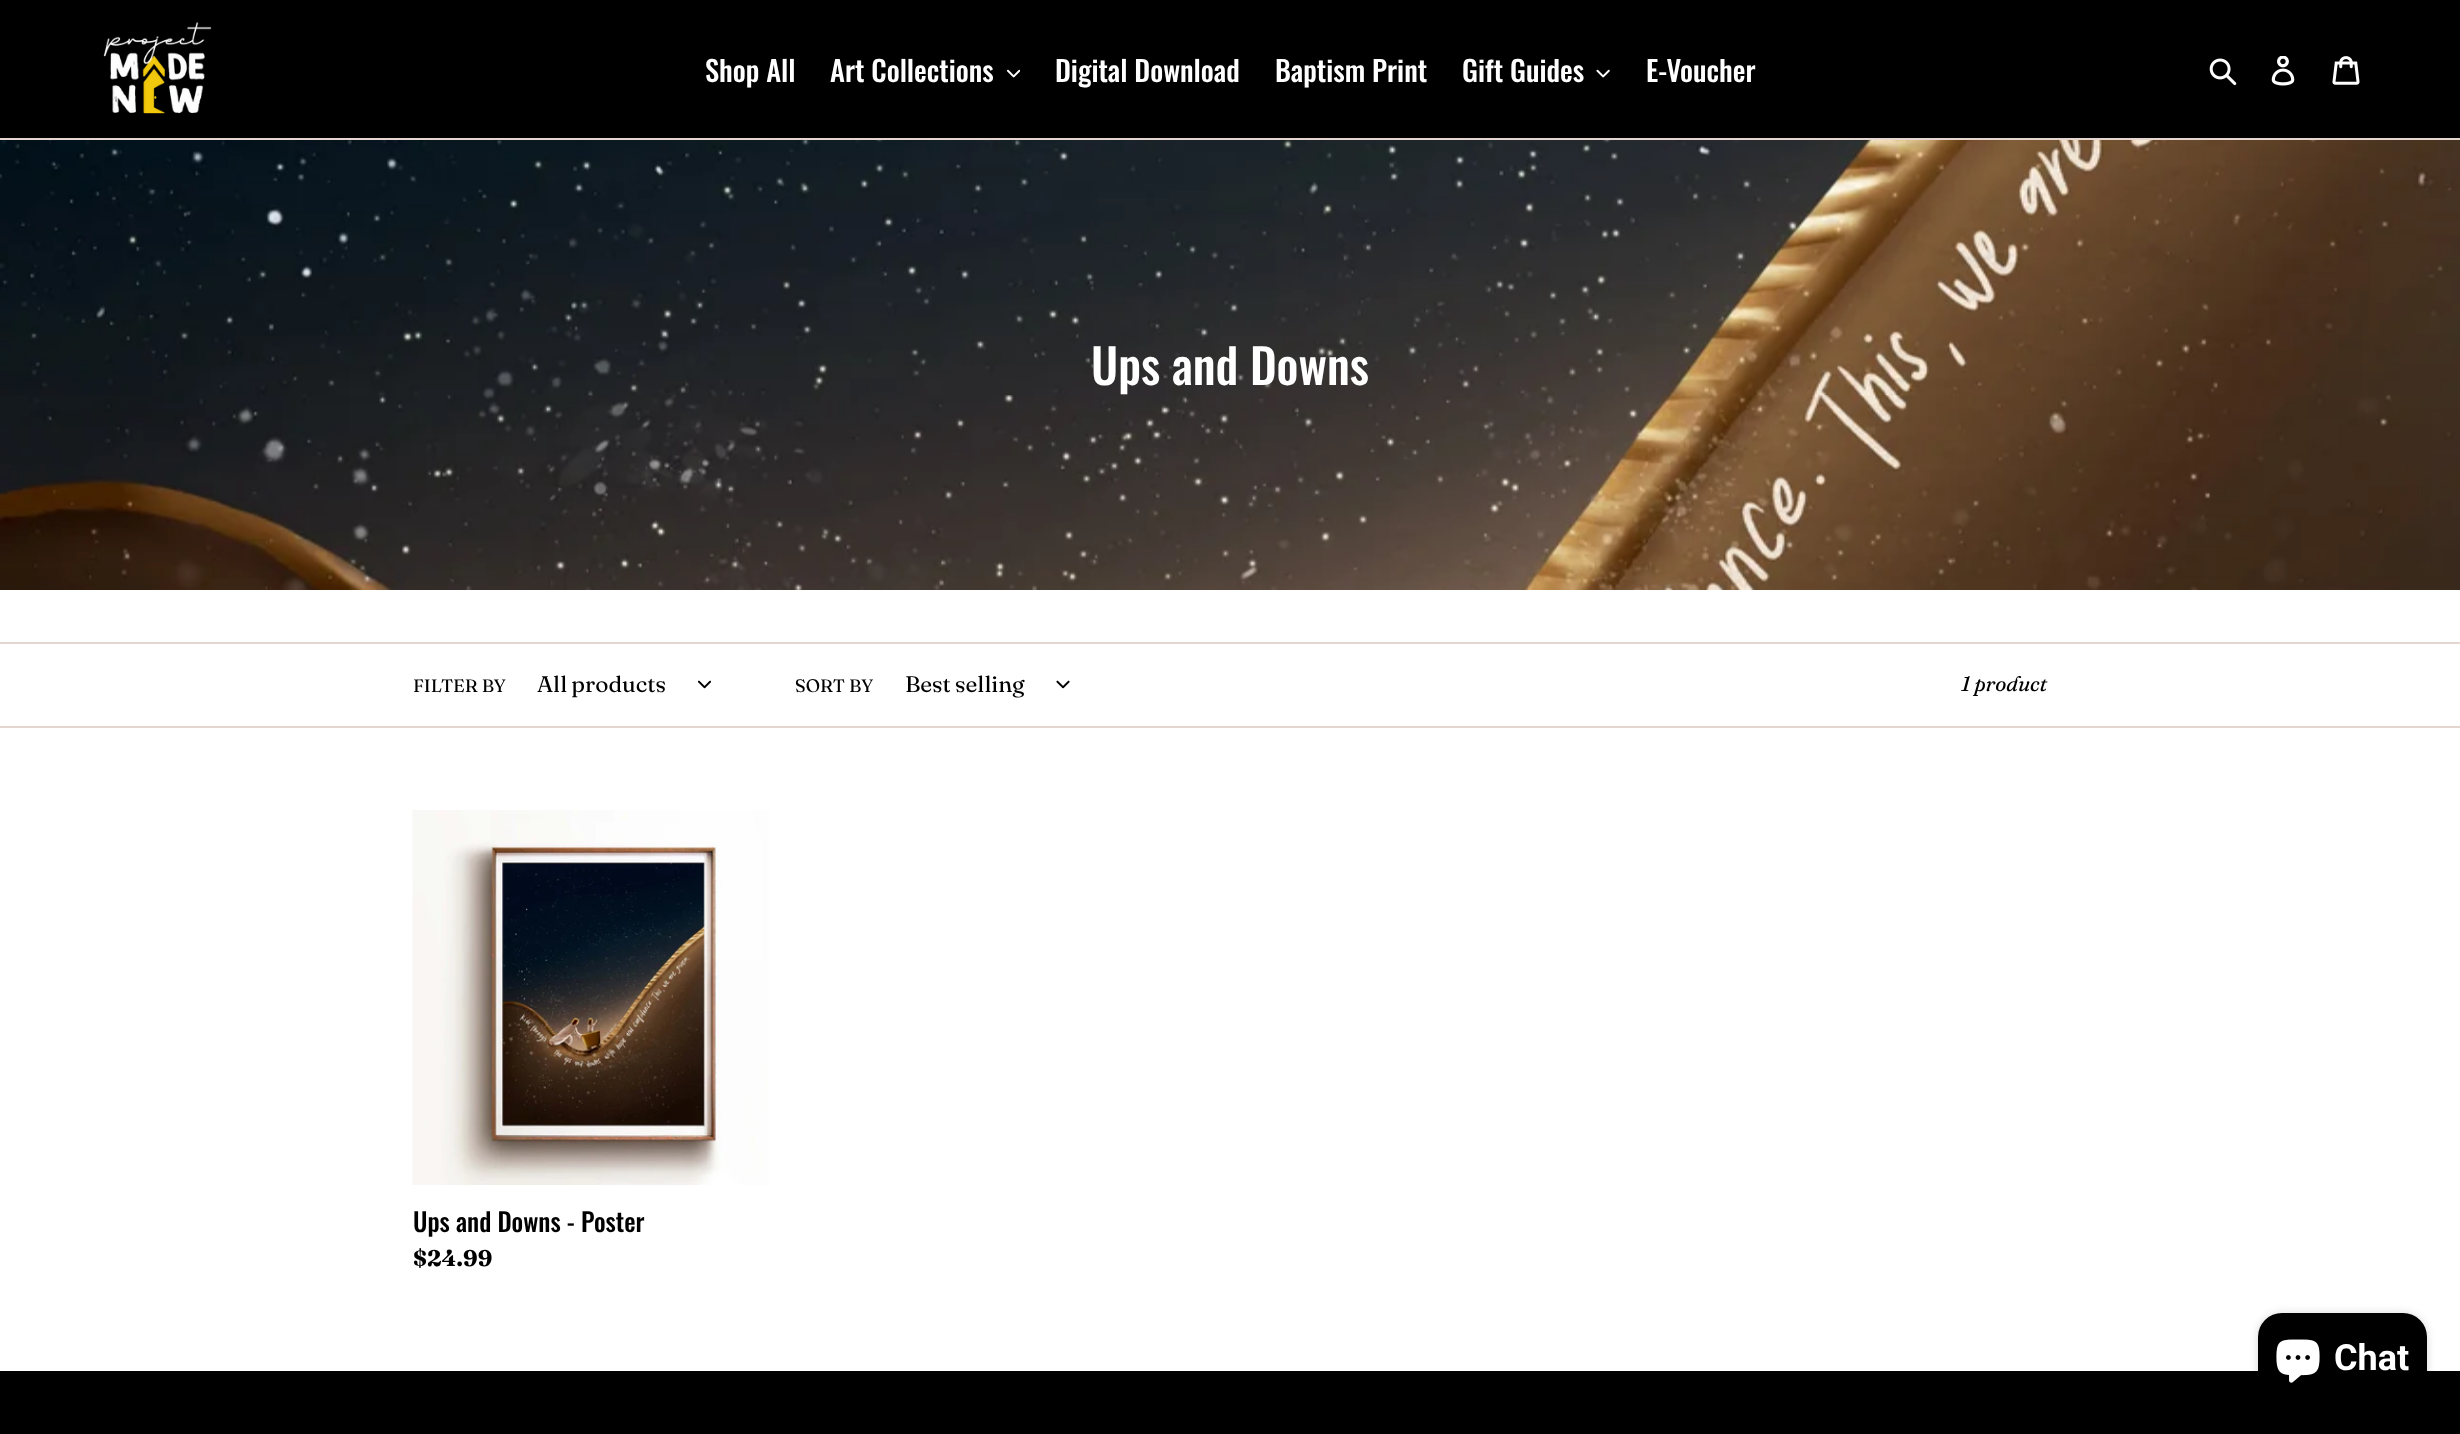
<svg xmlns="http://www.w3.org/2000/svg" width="2460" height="1434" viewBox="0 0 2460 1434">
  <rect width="100%" height="100%" fill="#fff"/>
  <path d="M0 0h2460v138H0z" fill="#000"/>
  <path d="M0 138h2460v2H0z" fill="#e5d7d0"/>
  <image x="103" y="22" width="109" height="92" href="img/1.png"/>
  <image x="1007" y="69" width="13" height="9" href="img/2.png"/>
  <image x="1596" y="69" width="14" height="9" href="img/3.png"/>
  <image x="2209" y="58" width="28" height="28" href="img/4.png"/>
  <image x="2271" y="56" width="24" height="30" href="img/5.png"/>
  <image x="2332" y="56" width="28" height="29" href="img/6.png"/>
  <image x="0" y="140" width="2460" height="450" href="img/7.png"/>
  <path d="M0 642h2460v2H0z" fill="#e5d7d0"/>
  <path d="M0 726h2460v2H0z" fill="#e5d7d0"/>
  <image x="698" y="680" width="13" height="9" href="img/8.png"/>
  <image x="1056" y="680" width="14" height="9" href="img/9.png"/>
  <image x="412" y="810" width="357" height="375" href="img/10.png"/>
  <path d="M0 1371h2460v63H0z" fill="#000"/>
  <rect x="2258" y="1313" width="169" height="90" rx="24" fill="#00000026" filter="blur(4px)"/>
  <rect x="2258" y="1313" width="169" height="90" rx="24" fill="#000"/>
  <image x="2276" y="1339" width="44" height="44" href="img/11.png"/>
  <g font-family="Oswald" font-size="28.5" font-weight="500" fill="#fff">
    <text x="705" y="82">Shop All</text>
    <text x="830" y="82">Art Collections</text>
    <text x="1055" y="82">Digital Download</text>
    <text x="1275" y="82">Baptism Print</text>
    <text x="1462" y="82">Gift Guides</text>
    <text x="1646" y="82">E-Voucher</text>
  </g>
  <text x="1091" y="385" font-family="Oswald" font-size="48" font-weight="500" fill="#fff">Ups and Downs</text>
  <text x="413" y="692" font-family="Fraunces" font-size="18" fill="#000">FILTER BY</text>
  <text x="537" y="692" word-spacing="-1" font-family="Fraunces" font-size="22.5" fill="#000">All products</text>
  <text x="795" y="692" font-family="Fraunces" font-size="18" fill="#000">SORT BY</text>
  <text x="905" y="692" word-spacing="-1" font-family="Fraunces" font-size="22.5" fill="#000">Best selling</text>
  <text x="1961" y="691" font-family="Fraunces" font-size="21" font-style="italic" fill="#000">1 product</text>
  <text x="413" y="1232" font-family="Oswald" font-size="25.5" font-weight="500" fill="#000">Ups and Downs - Poster</text>
  <text x="413" y="1266" font-family="Fraunces" font-size="22.5" font-weight="bold" fill="#000">$24.99</text>
  <text x="2334" y="1370" font-family="Roboto" font-size="36" font-weight="bold" fill="#fff">Chat</text>
</svg>
